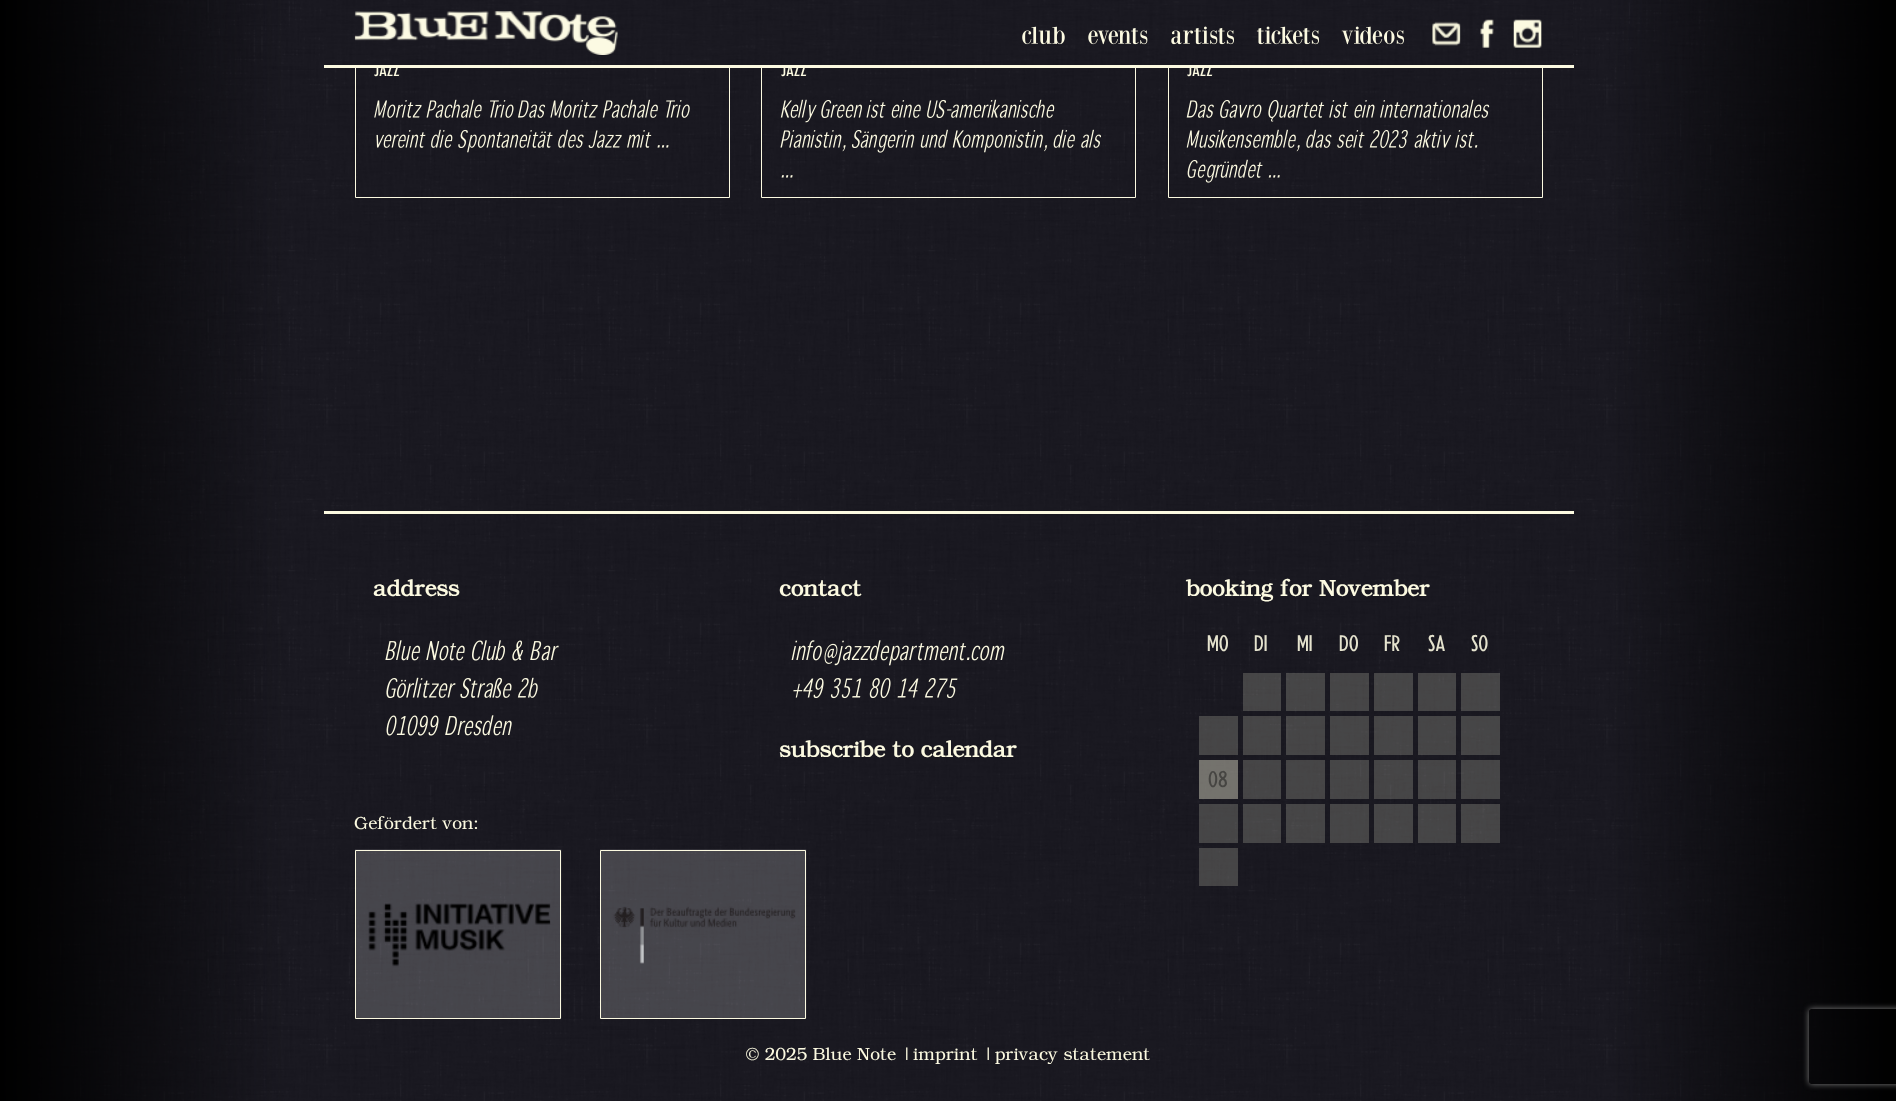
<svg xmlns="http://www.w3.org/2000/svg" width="1896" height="1101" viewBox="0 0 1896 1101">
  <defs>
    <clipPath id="clip1"><path d="M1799 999H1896V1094H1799ZM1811.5 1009H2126.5C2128 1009 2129 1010 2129 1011.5V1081.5C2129 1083 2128 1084 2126.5 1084H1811.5C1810 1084 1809 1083 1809 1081.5V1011.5C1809 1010 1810 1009 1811.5 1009Z" clip-rule="evenodd"/></clipPath>
  </defs>
  <rect width="100%" height="100%" fill="#fff"/>
  <image x="0" y="0" width="1896" height="1101" href="img/1.png"/>
  <path d="M355.5 -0.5h374v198H355.5z" fill="none" stroke="#fcfae1"/>
  <path d="M761.5 -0.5h374v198H761.5z" fill="none" stroke="#fcfae1"/>
  <path d="M1168.5 -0.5h374v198H1168.5z" fill="none" stroke="#fcfae1"/>
  <path d="M324 65h1250v3H324z" fill="#fcfae1"/>
  <image x="374" y="99" width="140" height="19" href="img/12.png"/>
  <image x="518" y="99" width="172" height="19" href="img/13.png"/>
  <image x="376" y="129" width="293" height="24" href="img/14.png"/>
  <image x="780" y="99" width="83" height="24" href="img/15.png"/>
  <image x="866" y="99" width="189" height="19" href="img/16.png"/>
  <image x="780" y="129" width="321" height="24" href="img/17.png"/>
  <image x="781" y="175" width="12" height="3" href="img/18.png"/>
  <image x="1186" y="99" width="304" height="23" href="img/19.png"/>
  <image x="1186" y="129" width="292" height="23" href="img/20.png"/>
  <image x="1187" y="159" width="93" height="24" href="img/21.png"/>
  <path d="M324 511h1250v3H324z" fill="#fcfae1"/>
  <image x="385" y="640" width="174" height="21" href="img/22.png"/>
  <image x="386" y="677" width="152" height="22" href="img/23.png"/>
  <image x="386" y="715" width="126" height="21" href="img/24.png"/>
  <image x="791" y="640" width="214" height="26" href="img/25.png"/>
  <image x="793" y="678" width="165" height="21" href="img/26.png"/>
  <path d="M1243 673h38v38H1243z" fill="#fcfae133"/>
  <path d="M1286 673h39v38H1286z" fill="#fcfae133"/>
  <path d="M1330 673h39v38H1330z" fill="#fcfae133"/>
  <path d="M1374 673h39v38H1374z" fill="#fcfae133"/>
  <path d="M1418 673h38v38H1418z" fill="#fcfae133"/>
  <path d="M1461 673h39v38H1461z" fill="#fcfae133"/>
  <path d="M1199 716h39v39H1199z" fill="#fcfae133"/>
  <path d="M1243 716h38v39H1243z" fill="#fcfae133"/>
  <path d="M1286 716h39v39H1286z" fill="#fcfae133"/>
  <path d="M1330 716h39v39H1330z" fill="#fcfae133"/>
  <path d="M1374 716h39v39H1374z" fill="#fcfae133"/>
  <path d="M1418 716h38v39H1418z" fill="#fcfae133"/>
  <path d="M1461 716h39v39H1461z" fill="#fcfae133"/>
  <path d="M1199 760h39v39H1199z" fill="#fcfae166"/>
  <path d="M1243 760h38v39H1243z" fill="#fcfae133"/>
  <path d="M1286 760h39v39H1286z" fill="#fcfae133"/>
  <path d="M1330 760h39v39H1330z" fill="#fcfae133"/>
  <path d="M1374 760h39v39H1374z" fill="#fcfae133"/>
  <path d="M1418 760h38v39H1418z" fill="#fcfae133"/>
  <path d="M1461 760h39v39H1461z" fill="#fcfae133"/>
  <path d="M1199 804h39v39H1199z" fill="#fcfae133"/>
  <path d="M1243 804h38v39H1243z" fill="#fcfae133"/>
  <path d="M1286 804h39v39H1286z" fill="#fcfae133"/>
  <path d="M1330 804h39v39H1330z" fill="#fcfae133"/>
  <path d="M1374 804h39v39H1374z" fill="#fcfae133"/>
  <path d="M1418 804h38v39H1418z" fill="#fcfae133"/>
  <path d="M1461 804h39v39H1461z" fill="#fcfae133"/>
  <path d="M1199 848h39v38H1199z" fill="#fcfae133"/>
  <image x="355" y="849" width="207" height="169" href="img/27.png"/>
  <path d="M355.5 850.5h205v168H355.5z" fill="none" stroke="#fcfae1"/>
  <image x="600" y="849" width="207" height="169" href="img/28.png"/>
  <path d="M600.5 850.5h205v168H600.5z" fill="none" stroke="#fcfae1"/>
  <g clip-path="url(#clip1)">
    <rect x="1809" y="1009" width="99" height="75" rx="2.5" fill="#808080" filter="blur(3px)"/>
  </g>
  <g font-family="'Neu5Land'" font-size="17.5" font-weight="500" fill="#fcfae1">
    <text x="374" y="76">JAZZ</text>
    <text x="781" y="76">JAZZ</text>
    <text x="1187" y="76">JAZZ</text>
  </g>
  <image x="326" y="0" width="1247" height="65" href="img/2.png"/>
  <image x="354" y="11" width="264" height="44" href="img/3.png"/>
  <image x="1513" y="19" width="29" height="29" href="img/11.png"/>
  <image x="1480" y="19" width="14" height="29" href="img/10.png"/>
  <image x="1432" y="21" width="29" height="25" href="img/9.png"/>
  <image x="1341" y="26" width="63" height="19" href="img/8.png"/>
  <image x="1256" y="26" width="63" height="19" href="img/7.png"/>
  <image x="1171" y="26" width="63" height="19" href="img/6.png"/>
  <image x="1088" y="28" width="60" height="17" href="img/5.png"/>
  <image x="1022" y="26" width="43" height="19" href="img/4.png"/>
  <g font-family="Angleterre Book" font-size="22.5" font-weight="bold" fill="#fcfae1">
    <text x="373" y="596">address</text>
    <text x="779" y="596">contact</text>
    <text x="779" y="757">subscribe to calendar</text>
    <text x="1186" y="596">booking for November</text>
  </g>
  <g font-family="'Neu5Land'" font-size="22.5" font-weight="500" fill="#e5e3ce">
    <text x="1207" y="651">MO</text>
    <text x="1254" y="651">DI</text>
    <text x="1297" y="651">MI</text>
    <text x="1339" y="651">DO</text>
    <text x="1384" y="651">FR</text>
    <text x="1428" y="651">SA</text>
    <text x="1471" y="651">SO</text>
  </g>
  <text x="1208" y="787" font-family="'Neu5Land'" font-size="22.5" font-weight="500" fill="#464542">08</text>
  <g font-family="Angleterre Book" font-size="17.5" fill="#fcfae1">
    <text x="354" y="829">Gefördert von:</text>
    <text x="746" y="1060">© 2025 Blue Note | imprint | privacy statement</text>
  </g>
</svg>
